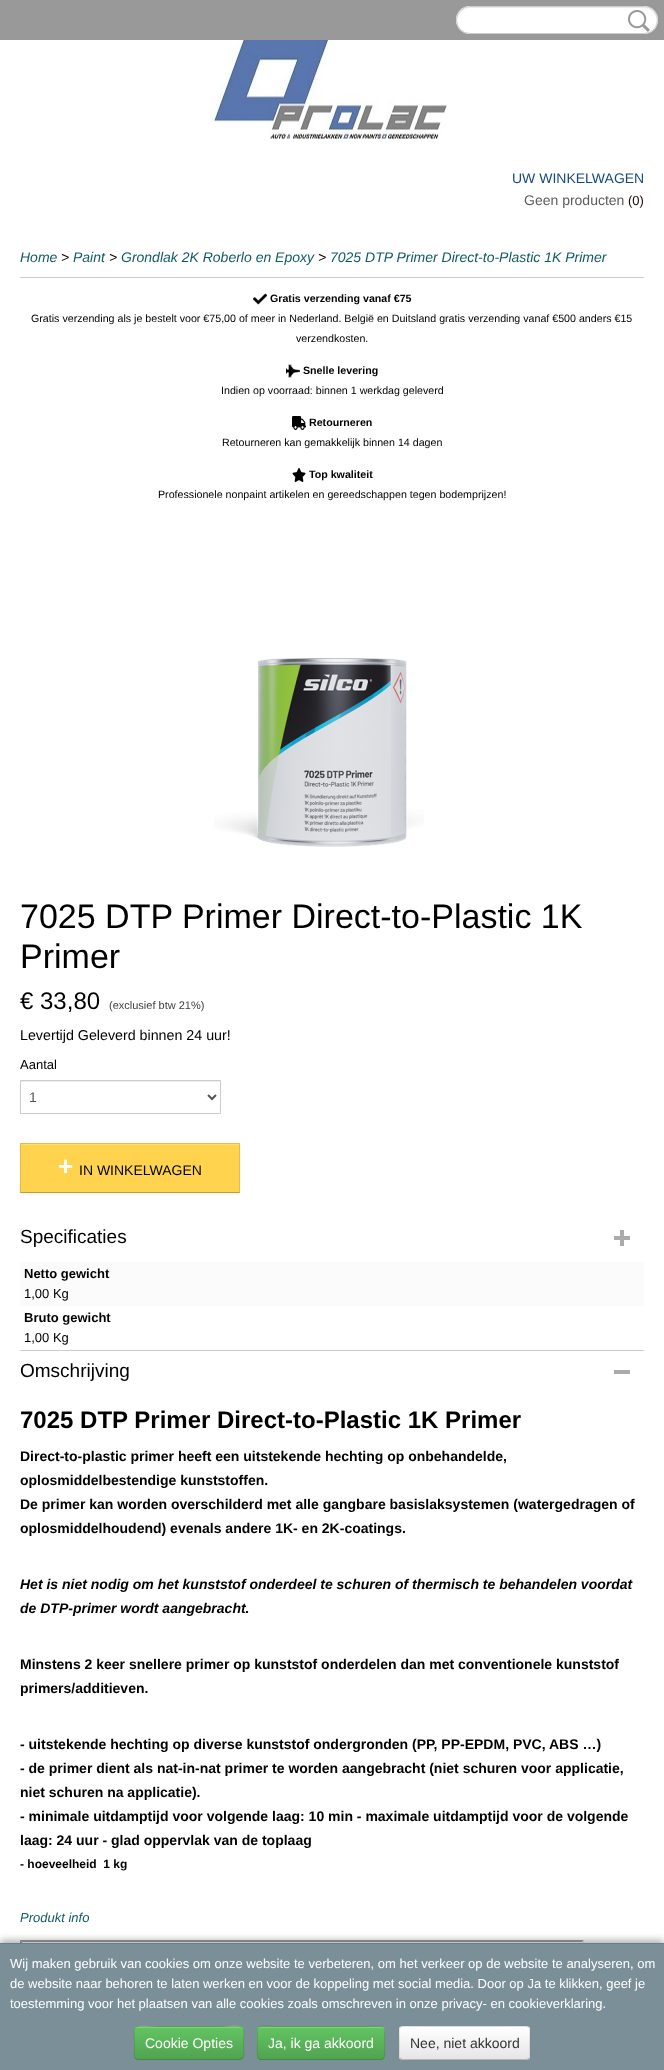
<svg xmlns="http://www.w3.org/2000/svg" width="664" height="2070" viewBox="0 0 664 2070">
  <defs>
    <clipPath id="clip1"><rect x="134" y="2026" width="110" height="34" rx="4"/></clipPath>
    <linearGradient id="g1" gradientUnits="userSpaceOnUse" x1="189" y1="2027" x2="189" y2="2059"><stop offset="0" stop-color="#62c462"/><stop offset="1" stop-color="#51a351"/></linearGradient>
    <clipPath id="clip2"><rect x="257" y="2026" width="128" height="34" rx="4"/></clipPath>
    <linearGradient id="g2" gradientUnits="userSpaceOnUse" x1="321" y1="2027" x2="321" y2="2059"><stop offset="0" stop-color="#62c462"/><stop offset="1" stop-color="#51a351"/></linearGradient>
    <clipPath id="clip3"><rect x="399" y="2026" width="131" height="34" rx="4"/></clipPath>
    <linearGradient id="g3" gradientUnits="userSpaceOnUse" x1="465" y1="2027" x2="465" y2="2059"><stop offset="0" stop-color="#fff"/><stop offset="1" stop-color="#e6e6e6"/></linearGradient>
  </defs>
  <rect width="100%" height="100%" fill="#fff"/>
  <path d="M0 0h664v40H0z" fill="#999"/>
  <rect x="456" y="6" width="202" height="28" rx="14" fill="#fff"/>
  <path d="M470 8H644C651 8 657 14 657 21C658 0 623 7 615 7H499C491 7 456 0 457 21C457 14 463 8 470 8Z" fill="#ececec"/>
  <rect x="456.5" y="6.5" width="201" height="27" rx="13.5" fill="none" stroke="#ccc"/>
  <image x="628" y="10" width="22" height="22" href="img/1.png"/>
  <image x="210" y="40" width="237" height="100" href="img/2.png"/>
  <path d="M20 277h624v1H20z" fill="#ccc"/>
  <image x="253" y="293" width="14" height="12" href="img/3.png"/>
  <image x="286" y="364" width="14" height="14" href="img/4.png"/>
  <image x="292" y="416" width="14" height="14" href="img/5.png"/>
  <image x="292" y="468" width="14" height="14" href="img/6.png"/>
  <image x="214" y="658" width="210" height="189" href="img/7.png"/>
  <path d="M21 1081h199v1H21z" fill="#ececec"/>
  <path d="M20.5 1080.5h200v33H20.5z" fill="none" stroke="#ccc"/>
  <path d="M208 1095L212 1099L216 1095" fill="none" stroke="#555" stroke-width="2"/>
  <path d="M20 1144h220v50H20z" fill="#0000000d" filter="blur(1px)"/>
  <path d="M20 1143h220v50H20z" fill="#ffd34e"/>
  <path d="M21 1144h218v1H21z" fill="#ffdc71"/>
  <path d="M20 1143H240L239 1144H21Z" fill="#e6be46"/>
  <path d="M240 1143V1193L239 1192V1144Z" fill="#0000001a"/>
  <path d="M240 1193H20L21 1192H239Z" fill="#00000040"/>
  <path d="M20 1193V1143L21 1144V1192Z" fill="#0000001a"/>
  <path d="M20 1350h624v1H20z" fill="#ccc"/>
  <image x="614" y="1230" width="16" height="16" href="img/8.png"/>
  <path d="M20 1262h624v44H20z" fill="#fbfbfb"/>
  <path d="M614 1370h16v4H614z" fill="#ababab"/>
  <path d="M20 1940H584L582 1942H22Z" fill="#9f9f9f"/>
  <path d="M20 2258V1940L22 1942V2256Z" fill="#9f9f9f"/>
  <path d="M584 1940V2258L582 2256V1942Z" fill="#eee"/>
  <path d="M0 1940h664v127H0z" fill="#0000004d" filter="blur(3.5px)"/>
  <path d="M0 1944h664v126H0z" fill="#7a8f98"/>
  <path d="M0 1943h664v1H0z" fill="#697e87"/>
  <rect x="134" y="2026" width="110" height="34" rx="4" fill="#5bb75b"/>
  <g clip-path="url(#clip1)">
    <path d="M134 2027h110v32H134z" fill="url(#g1)"/>
  </g>
  <path d="M138 2028H240C242 2028 243 2029 243 2031C243 2022 225 2027 223 2027H155C153 2027 135 2022 135 2031C135 2029 136 2028 138 2028Z" fill="#ffffff33"/>
  <path d="M242.5 2058.5L240 2059.5H137.5L135.5 2058.5" fill="none" stroke="#00000040"/>
  <path d="M135.5 2058.5C133 2056 134.5 2050 134.5 2047.5C134.5 2023 130 2026.5 155 2026.5H223C248 2026.5 243.5 2023 243.5 2047.5C243.5 2050 245 2056 242.5 2058.5" fill="none" stroke="#0000001a"/>
  <rect x="257" y="2026" width="128" height="34" rx="4" fill="#5bb75b"/>
  <g clip-path="url(#clip2)">
    <path d="M257 2027h128v32H257z" fill="url(#g2)"/>
  </g>
  <path d="M261 2028H381C383 2028 384 2029 384 2031C384 2029 384 2027 382 2027H261C259 2027 258 2029 258 2031C258 2029 259 2028 261 2028Z" fill="#81cf81"/>
  <path d="M383.5 2058.5C383 2059 382 2059.5 381 2059.5H261C260 2059.5 259 2059 258.5 2058.5" fill="none" stroke="#00000040"/>
  <path d="M258.5 2058.5C256.5 2056 257.5 2046 257.5 2043C257.5 2021.5 255.5 2026.5 281 2026.5H361C386.5 2026.5 384.5 2021.5 384.5 2043C384.5 2046 385.5 2056 383.5 2058.5" fill="none" stroke="#0000001a"/>
  <rect x="399" y="2026" width="131" height="34" rx="4" fill="#f5f5f5"/>
  <g clip-path="url(#clip3)">
    <path d="M399 2027h131v32H399z" fill="url(#g3)"/>
  </g>
  <path d="M528.5 2058.5C528 2059 527 2059.5 526 2059.5H403C402 2059.5 401 2059 400.5 2058.5" fill="none" stroke="#00000040"/>
  <path d="M400.5 2058.5C398 2056 399.5 2050 399.5 2047.5C399.5 2021.5 395 2026.5 423.5 2026.5H505.5C534 2026.5 529.5 2021.5 529.5 2047.5C529.5 2050 531 2056 528.5 2058.5" fill="none" stroke="#0000001a"/>
  <text x="512" y="183" font-family="Liberation Sans" font-size="14" fill="#17497a">UW WINKELWAGEN</text>
  <text x="524" y="205" font-family="Liberation Sans" font-size="14" fill="#5c5c5c">Geen producten</text>
  <text x="628" y="205" font-family="Liberation Sans" font-size="13" fill="#170906">(0)</text>
  <text x="20" y="262" font-family="Liberation Sans" font-size="14" font-style="italic" fill="#105b63">Home</text>
  <text x="61" y="262" font-family="Liberation Sans" font-size="14" font-style="italic" fill="#000">&gt;</text>
  <text x="73" y="262" font-family="Liberation Sans" font-size="14" font-style="italic" fill="#105b63">Paint</text>
  <text x="109" y="262" font-family="Liberation Sans" font-size="14" font-style="italic" fill="#000">&gt;</text>
  <text x="121" y="262" font-family="Liberation Sans" font-size="14" font-style="italic" fill="#105b63">Grondlak 2K Roberlo en Epoxy</text>
  <text x="318" y="262" font-family="Liberation Sans" font-size="14" font-style="italic" fill="#000">&gt;</text>
  <text x="330" y="262" font-family="Liberation Sans" font-size="14" font-style="italic" fill="#105b63">7025 DTP Primer Direct-to-Plastic 1K Primer</text>
  <text x="270" y="302" font-family="Liberation Sans" font-size="10.67" font-weight="bold" fill="#000">Gratis verzending vanaf €75</text>
  <g font-family="Liberation Sans" font-size="10.67" fill="#000">
    <text x="31" y="322">Gratis verzending als je bestelt voor €75,00 of meer in Nederland. België en Duitsland gratis verzending vanaf €500 anders €15</text>
    <text x="296" y="342">verzendkosten.</text>
  </g>
  <text x="303" y="374" font-family="Liberation Sans" font-size="10.67" font-weight="bold" fill="#000">Snelle levering</text>
  <text x="221" y="394" font-family="Liberation Sans" font-size="10.67" fill="#000">Indien op voorraad: binnen 1 werkdag geleverd</text>
  <text x="309" y="426" font-family="Liberation Sans" font-size="10.67" font-weight="bold" fill="#000">Retourneren</text>
  <text x="222" y="446" font-family="Liberation Sans" font-size="10.67" fill="#000">Retourneren kan gemakkelijk binnen 14 dagen</text>
  <text x="309" y="478" font-family="Liberation Sans" font-size="10.67" font-weight="bold" fill="#000">Top kwaliteit</text>
  <text x="158" y="498" font-family="Liberation Sans" font-size="10.67" fill="#000">Professionele nonpaint artikelen en gereedschappen tegen bodemprijzen!</text>
  <g font-family="Liberation Sans" font-size="34" fill="#000">
    <text x="20" y="928">7025 DTP Primer Direct-to-Plastic 1K</text>
    <text x="20" y="968">Primer</text>
  </g>
  <text x="20" y="1009" font-family="Liberation Sans" font-size="24" fill="#000">€ 33,80</text>
  <text x="109" y="1009" font-family="Liberation Sans" font-size="11" fill="#404040">(exclusief btw 21%)</text>
  <text x="20" y="1040" font-family="Liberation Sans" font-size="14.25" fill="#000">Levertijd Geleverd binnen 24 uur!</text>
  <text x="20" y="1069" font-family="Liberation Sans" font-size="13" fill="#000">Aantal</text>
  <text x="29" y="1102" font-family="Liberation Sans" font-size="14" fill="#555">1</text>
  <text x="58" y="1175" font-family="Liberation Sans" font-size="26" font-weight="bold" fill="#fff">+</text>
  <text x="79" y="1175" font-family="Liberation Sans" font-size="14" fill="#000">IN WINKELWAGEN</text>
  <text x="20" y="1243" font-family="Liberation Sans" font-size="19" fill="#000">Specificaties</text>
  <text x="24" y="1278" font-family="Liberation Sans" font-size="13" font-weight="bold" fill="#000">Netto gewicht</text>
  <text x="24" y="1298" font-family="Liberation Sans" font-size="13" fill="#000">1,00 Kg</text>
  <text x="24" y="1322" font-family="Liberation Sans" font-size="13" font-weight="bold" fill="#000">Bruto gewicht</text>
  <text x="24" y="1342" font-family="Liberation Sans" font-size="13" fill="#000">1,00 Kg</text>
  <text x="20" y="1377" font-family="Liberation Sans" font-size="19" fill="#000">Omschrijving</text>
  <text x="20" y="1428" font-family="Liberation Sans" font-size="24" font-weight="bold" fill="#000">7025 DTP Primer Direct-to-Plastic 1K Primer</text>
  <g font-family="Liberation Sans" font-size="14" font-weight="bold" fill="#000">
    <text x="20" y="1461">Direct-to-plastic primer heeft een uitstekende hechting op onbehandelde,</text>
    <text x="20" y="1485">oplosmiddelbestendige kunststoffen.</text>
    <text x="20" y="1509">De primer kan worden overschilderd met alle gangbare basislaksystemen (watergedragen of</text>
    <text x="20" y="1533">oplosmiddelhoudend) evenals andere 1K- en 2K-coatings.</text>
  </g>
  <g font-family="Liberation Sans" font-size="14" font-weight="bold" font-style="italic" fill="#000">
    <text x="20" y="1589">Het is niet nodig om het kunststof onderdeel te schuren of thermisch te behandelen voordat</text>
    <text x="20" y="1613">de DTP-primer wordt aangebracht.</text>
  </g>
  <g font-family="Liberation Sans" font-size="14" font-weight="bold" fill="#000">
    <text x="20" y="1669">Minstens 2 keer snellere primer op kunststof onderdelen dan met conventionele kunststof</text>
    <text x="20" y="1693">primers/additieven.</text>
    <text x="20" y="1749">- uitstekende hechting op diverse kunststof ondergronden (PP, PP-EPDM, PVC, ABS …)</text>
    <text x="20" y="1773">- de primer dient als nat-in-nat primer te worden aangebracht (niet schuren voor applicatie,</text>
    <text x="20" y="1797">niet schuren na applicatie).</text>
    <text x="20" y="1821">- minimale uitdamptijd voor volgende laag: 10 min - maximale uitdamptijd voor de volgende</text>
    <text x="20" y="1845">laag: 24 uur - glad oppervlak van de toplaag</text>
  </g>
  <text x="20" y="1868" font-family="Liberation Sans" font-size="12" font-weight="bold" fill="#000" xml:space="preserve">- hoeveelheid  1 kg</text>
  <text x="20" y="1922" font-family="Liberation Sans" font-size="13" font-style="italic" fill="#105b63">Produkt info</text>
  <g font-family="Liberation Sans" font-size="13" fill="#fff">
    <text x="10" y="1968">Wij maken gebruik van cookies om onze website te verbeteren, om het verkeer op de website te analyseren, om</text>
    <text x="10" y="1988">de website naar behoren te laten werken en voor de koppeling met social media. Door op Ja te klikken, geef je</text>
    <text x="10" y="2008">toestemming voor het plaatsen van alle cookies zoals omschreven in onze privacy- en cookieverklaring.</text>
  </g>
  <g font-family="Liberation Sans" font-size="14" fill="#fff">
    <text x="145" y="2048">Cookie Opties</text>
    <text x="268" y="2048">Ja, ik ga akkoord</text>
  </g>
  <text x="410" y="2048" font-family="Liberation Sans" font-size="14" fill="#333">Nee, niet akkoord</text>
</svg>
